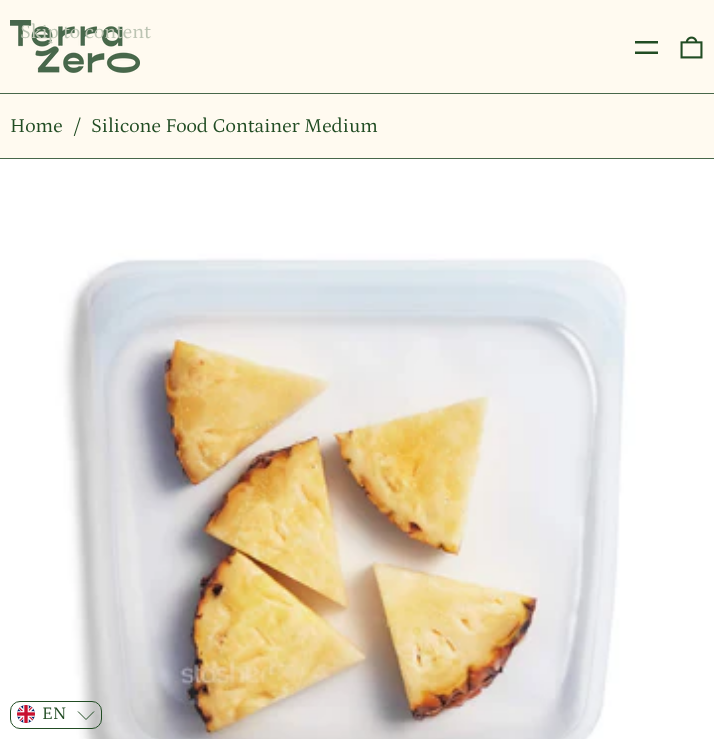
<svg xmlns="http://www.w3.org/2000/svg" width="714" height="739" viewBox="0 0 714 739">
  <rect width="100%" height="100%" fill="#fffaf0"/>
  <path d="M0 93h714v1H0z" fill="#47674a"/>
  <image x="10" y="20" width="130" height="53" href="img/1.png"/>
  <path d="M658 51.5V54H635V51.5ZM658 41V43.5H635V41Z" fill="#214c23" fill-rule="evenodd"/>
  <image x="680" y="36" width="23" height="23" href="img/2.png"/>
  <path d="M0 158h714v1H0z" fill="#47674a"/>
  <image x="0" y="159" width="714" height="580" href="img/3.png"/>
  <rect x="10.5" y="701.5" width="91" height="27" rx="9.5" fill="none" stroke="#214c23"/>
  <image x="17" y="705" width="18" height="18" href="img/4.png"/>
  <path d="M78 711.5L86 719.5L94 711.5" fill="none" stroke="#214c23"/>
  <text x="20" y="38" font-family="Petrona" font-size="20" fill="#bcc4b3">Skip to content</text>
  <g font-family="Petrona" font-size="20" fill="#214c23">
    <text x="10" y="132">Home</text>
    <text x="73" y="132">/</text>
    <text x="91" y="132">Silicone Food Container Medium</text>
  </g>
  <text x="42" y="719" font-family="Petrona" font-size="18" fill="#214c23">EN</text>
</svg>
